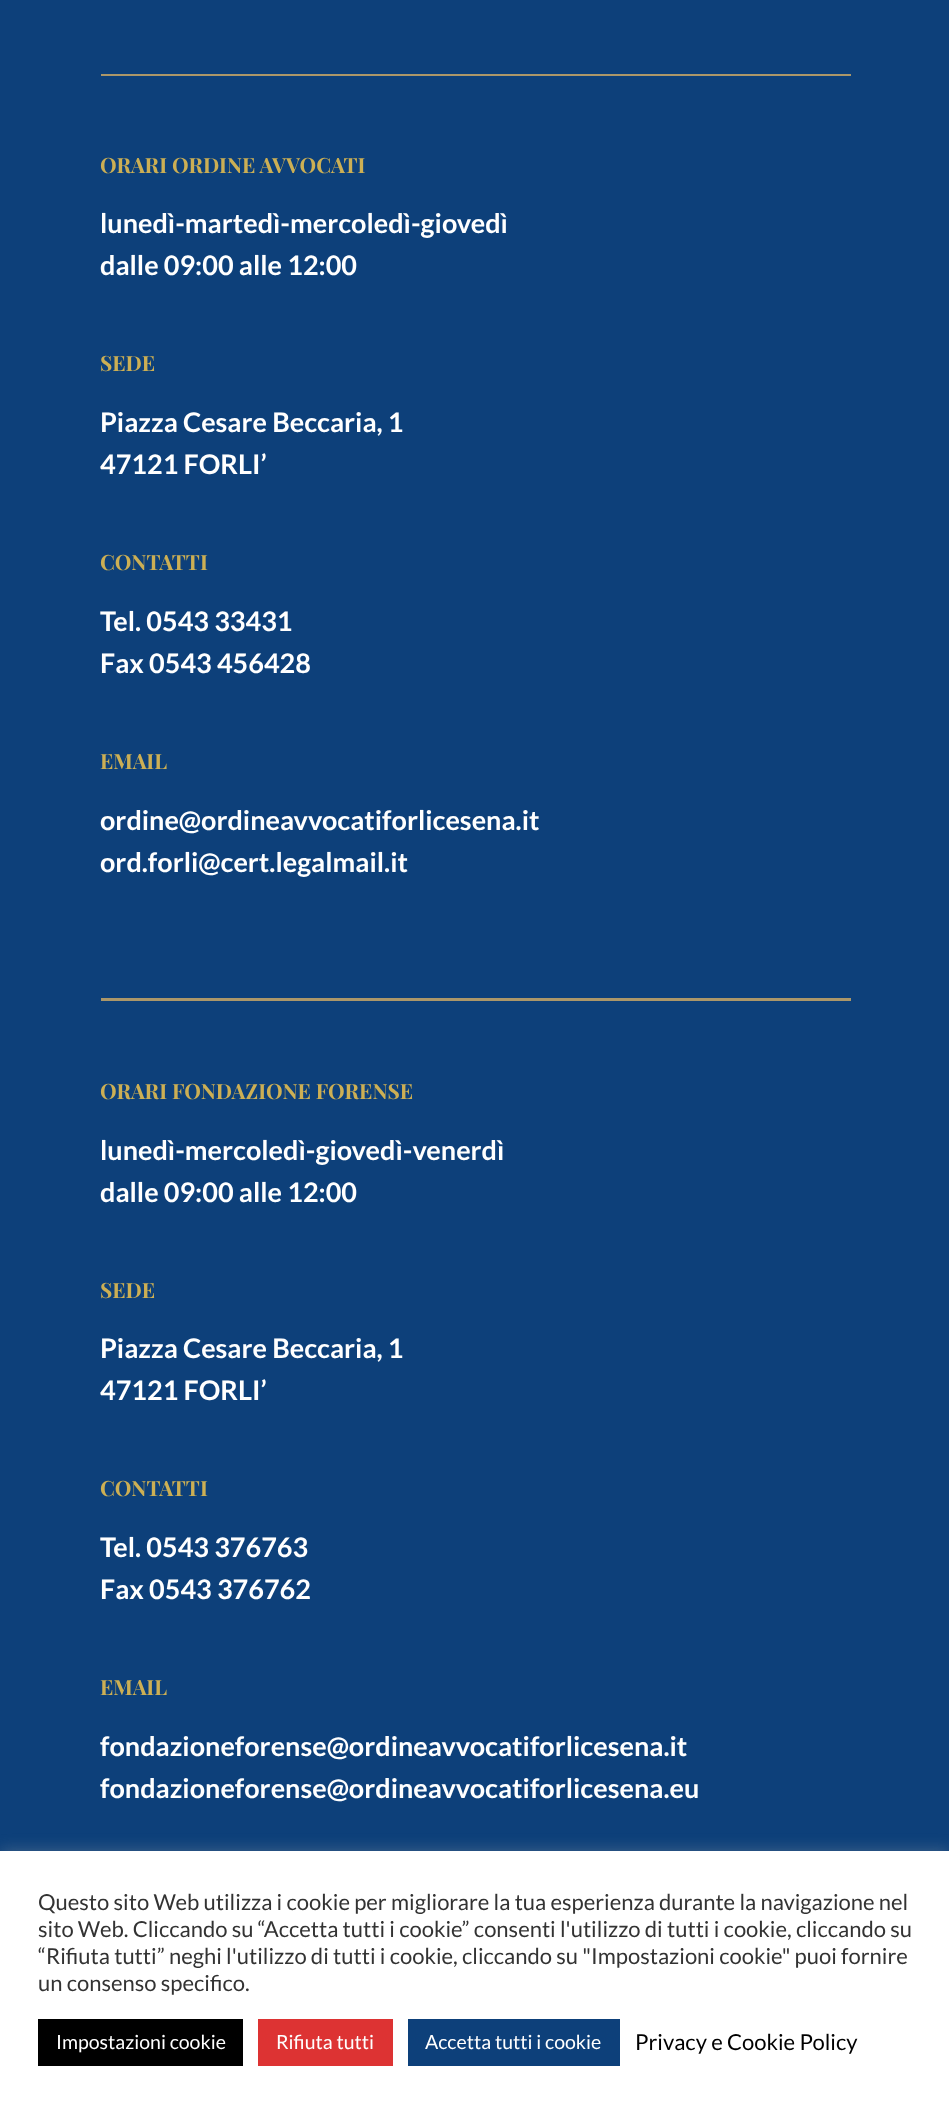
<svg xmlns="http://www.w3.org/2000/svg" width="949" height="2110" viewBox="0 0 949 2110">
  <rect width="100%" height="100%" fill="#0d407a"/>
  <path d="M101 74h750v2H101z" fill="#ab9769"/>
  <path d="M101 998h750v3H101z" fill="#ab9769"/>
  <path d="M0 1850h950v259H0z" fill="#acabab4d" filter="blur(7.5px)"/>
  <path d="M0 1851h949v259H0z" fill="#fff"/>
  <path d="M38 2019h205v47H38z" fill="#000"/>
  <path d="M258 2019h135v47H258z" fill="#d33"/>
  <path d="M408 2019h212v47H408z" fill="#0d407a"/>
  <text x="100" y="173" font-family="Playfair Display" font-size="21" font-weight="bold" fill="#ccaf54">ORARI ORDINE AVVOCATI</text>
  <g font-family="Lato" font-size="27" font-weight="bold" fill="#fff">
    <text x="100" y="233">lunedì-martedì-mercoledì-giovedì</text>
    <text x="100" y="275">dalle 09:00 alle 12:00</text>
  </g>
  <text x="100" y="371" font-family="Playfair Display" font-size="21" font-weight="bold" fill="#ccaf54">SEDE</text>
  <g font-family="Lato" font-size="27" font-weight="bold" fill="#fff">
    <text x="100" y="432">Piazza Cesare Beccaria, 1</text>
    <text x="100" y="474">47121 FORLI’</text>
  </g>
  <text x="100" y="570" font-family="Playfair Display" font-size="21" font-weight="bold" fill="#ccaf54">CONTATTI</text>
  <g font-family="Lato" font-size="27" font-weight="bold" fill="#fff">
    <text x="100" y="631">Tel. 0543 33431</text>
    <text x="100" y="673">Fax 0543 456428</text>
  </g>
  <text x="100" y="769" font-family="Playfair Display" font-size="21" font-weight="bold" fill="#ccaf54">EMAIL</text>
  <g font-family="Lato" font-size="27" font-weight="bold" fill="#fff">
    <text x="100" y="830">ordine@ordineavvocatiforlicesena.it</text>
    <text x="100" y="872">ord.forli@cert.legalmail.it</text>
  </g>
  <text x="100" y="1099" font-family="Playfair Display" font-size="21" font-weight="bold" fill="#ccaf54">ORARI FONDAZIONE FORENSE</text>
  <g font-family="Lato" font-size="27" font-weight="bold" fill="#fff">
    <text x="100" y="1160">lunedì-mercoledì-giovedì-venerdì</text>
    <text x="100" y="1202">dalle 09:00 alle 12:00</text>
  </g>
  <text x="100" y="1298" font-family="Playfair Display" font-size="21" font-weight="bold" fill="#ccaf54">SEDE</text>
  <g font-family="Lato" font-size="27" font-weight="bold" fill="#fff">
    <text x="100" y="1358">Piazza Cesare Beccaria, 1</text>
    <text x="100" y="1400">47121 FORLI’</text>
  </g>
  <text x="100" y="1496" font-family="Playfair Display" font-size="21" font-weight="bold" fill="#ccaf54">CONTATTI</text>
  <g font-family="Lato" font-size="27" font-weight="bold" fill="#fff">
    <text x="100" y="1557">Tel. 0543 376763</text>
    <text x="100" y="1599">Fax 0543 376762</text>
  </g>
  <text x="100" y="1695" font-family="Playfair Display" font-size="21" font-weight="bold" fill="#ccaf54">EMAIL</text>
  <g font-family="Lato" font-size="27" font-weight="bold" fill="#fff">
    <text x="100" y="1756">fondazioneforense@ordineavvocatiforlicesena.it</text>
    <text x="100" y="1798">fondazioneforense@ordineavvocatiforlicesena.eu</text>
  </g>
  <g font-family="Lato" font-size="22" fill="#333">
    <text x="38" y="1910">Questo sito Web utilizza i cookie per migliorare la tua esperienza durante la navigazione nel</text>
    <text x="38" y="1937">sito Web. Cliccando su “Accetta tutti i cookie” consenti l'utilizzo di tutti i cookie, cliccando su</text>
    <text x="38" y="1964">“Rifiuta tutti” neghi l'utilizzo di tutti i cookie, cliccando su "Impostazioni cookie" puoi fornire</text>
    <text x="38" y="1991">un consenso specifico.</text>
  </g>
  <g font-family="Lato" font-size="19.5" fill="#fff">
    <text x="56" y="2049">Impostazioni cookie</text>
    <text x="276" y="2049">Rifiuta tutti</text>
    <text x="425" y="2049">Accetta tutti i cookie</text>
  </g>
  <text x="635" y="2050" font-family="Lato" font-size="22" fill="#000">Privacy e Cookie Policy</text>
</svg>
